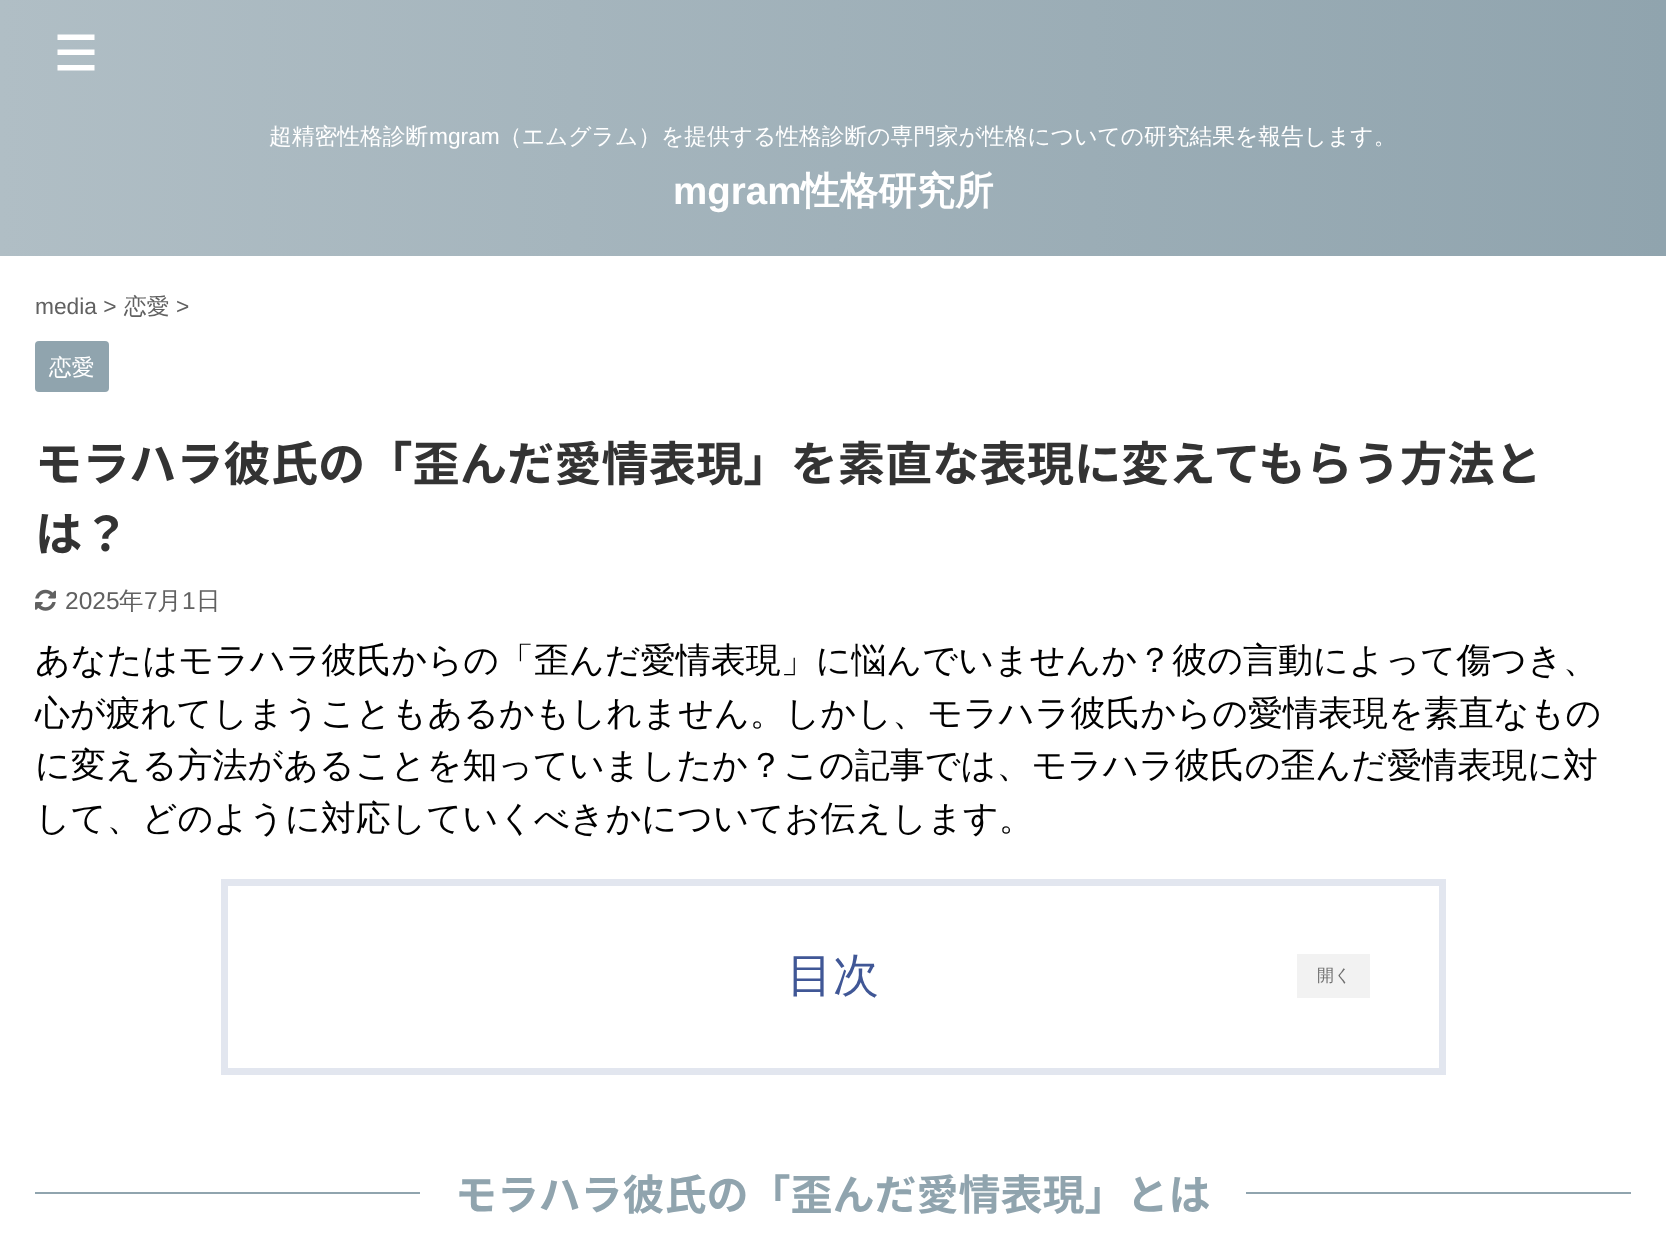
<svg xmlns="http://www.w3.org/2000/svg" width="1666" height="1236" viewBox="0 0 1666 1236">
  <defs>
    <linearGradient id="g1" gradientUnits="userSpaceOnUse" x1="1666" y1="128" x2="0" y2="128"><stop offset="0" stop-color="#90a4ae"/><stop offset="1" stop-color="#b0bec5"/></linearGradient>
  </defs>
  <rect width="100%" height="100%" fill="#fff"/>
  <path d="M0 0h1666v256H0z" fill="url(#g1)"/>
  <path d="M57.5 34.5H94.5V40H57.5ZM57.5 65H94.5V70.5H57.5ZM57.5 49.5H94.5V55H57.5Z" fill="#fff"/>
  <rect x="35" y="341" width="74" height="51" rx="4" fill="#90a4ae"/>
  <image x="35" y="589" width="21" height="22" href="img/1.png"/>
  <path d="M224.5 882.5h1218v189H224.5z" fill="none" stroke="#e2e6ef" stroke-width="7"/>
  <path d="M1297 954h73v44H1297z" fill="#f2f2f2"/>
  <path d="M35 1192h385v2H35z" fill="#90a4ae"/>
  <path d="M1246 1192h385v2H1246z" fill="#90a4ae"/>
  <text x="269" y="144" font-family="WenQuanYi Zen Hei" font-size="22.75" font-weight="500" fill="#fff">超精密性格診断</text>
  <text x="429" y="144" font-family="Liberation Sans" font-size="22.75" fill="#fff">mgram</text>
  <text x="499" y="144" font-family="WenQuanYi Zen Hei" font-size="22.75" font-weight="500" fill="#fff">（エムグラム）を提供する性格診断の専門家が性格についての研究結果を報告します。</text>
  <text x="673" y="204" font-family="Liberation Sans" font-size="38.5" font-weight="bold" fill="#fff">mgram</text>
  <text x="801" y="204" font-family="WenQuanYi Zen Hei" font-size="38.5" font-weight="bold" fill="#fff">性格研究所</text>
  <text x="35" y="314" font-family="Liberation Sans" font-size="22.75" fill="#616161">media &gt;</text>
  <text x="124" y="314" font-family="WenQuanYi Zen Hei" font-size="22.75" font-weight="500" fill="#616161">恋愛</text>
  <text x="176" y="314" font-family="Liberation Sans" font-size="22.75" fill="#616161">&gt;</text>
  <text x="49" y="375" font-family="WenQuanYi Zen Hei" font-size="22.75" font-weight="500" fill="#fff">恋愛</text>
  <g font-family="Noto Sans JP" font-size="47.25" font-weight="bold" fill="#333">
    <text x="35" y="481">モラハラ彼氏の「歪んだ愛情表現」を素直な表現に変えてもらう方法と</text>
    <text x="35" y="551">は？</text>
  </g>
  <text x="65" y="609" font-family="Liberation Sans" font-size="24.5" fill="#616161">2025</text>
  <text x="119" y="609" font-family="WenQuanYi Zen Hei" font-size="24.5" font-weight="500" fill="#616161">年</text>
  <text x="144" y="609" font-family="Liberation Sans" font-size="24.5" fill="#616161">7</text>
  <text x="157" y="609" font-family="WenQuanYi Zen Hei" font-size="24.5" font-weight="500" fill="#616161">月</text>
  <text x="182" y="609" font-family="Liberation Sans" font-size="24.5" fill="#616161">1</text>
  <text x="196" y="609" font-family="WenQuanYi Zen Hei" font-size="24.5" font-weight="500" fill="#616161">日</text>
  <g font-family="WenQuanYi Zen Hei" font-size="35" font-weight="500" fill="#000">
    <text x="35" y="672">あなたはモラハラ彼氏からの「歪んだ愛情表現」に悩んでいませんか？彼の言動によって傷つき、</text>
    <text x="35" y="725">心が疲れてしまうこともあるかもしれません。しかし、モラハラ彼氏からの愛情表現を素直なもの</text>
    <text x="35" y="777">に変える方法があることを知っていましたか？この記事では、モラハラ彼氏の歪んだ愛情表現に対</text>
    <text x="35" y="830">して、どのように対応していくべきかについてお伝えします。</text>
  </g>
  <text x="787" y="991" font-family="WenQuanYi Zen Hei" font-size="46" font-weight="500" fill="#405796">目次</text>
  <text x="1317" y="981" font-family="WenQuanYi Zen Hei" font-size="17" font-weight="500" fill="#707070">開く</text>
  <text x="455" y="1210" font-family="Noto Sans JP" font-size="42" font-weight="bold" fill="#90a4ae">モラハラ彼氏の「歪んだ愛情表現」とは</text>
</svg>
